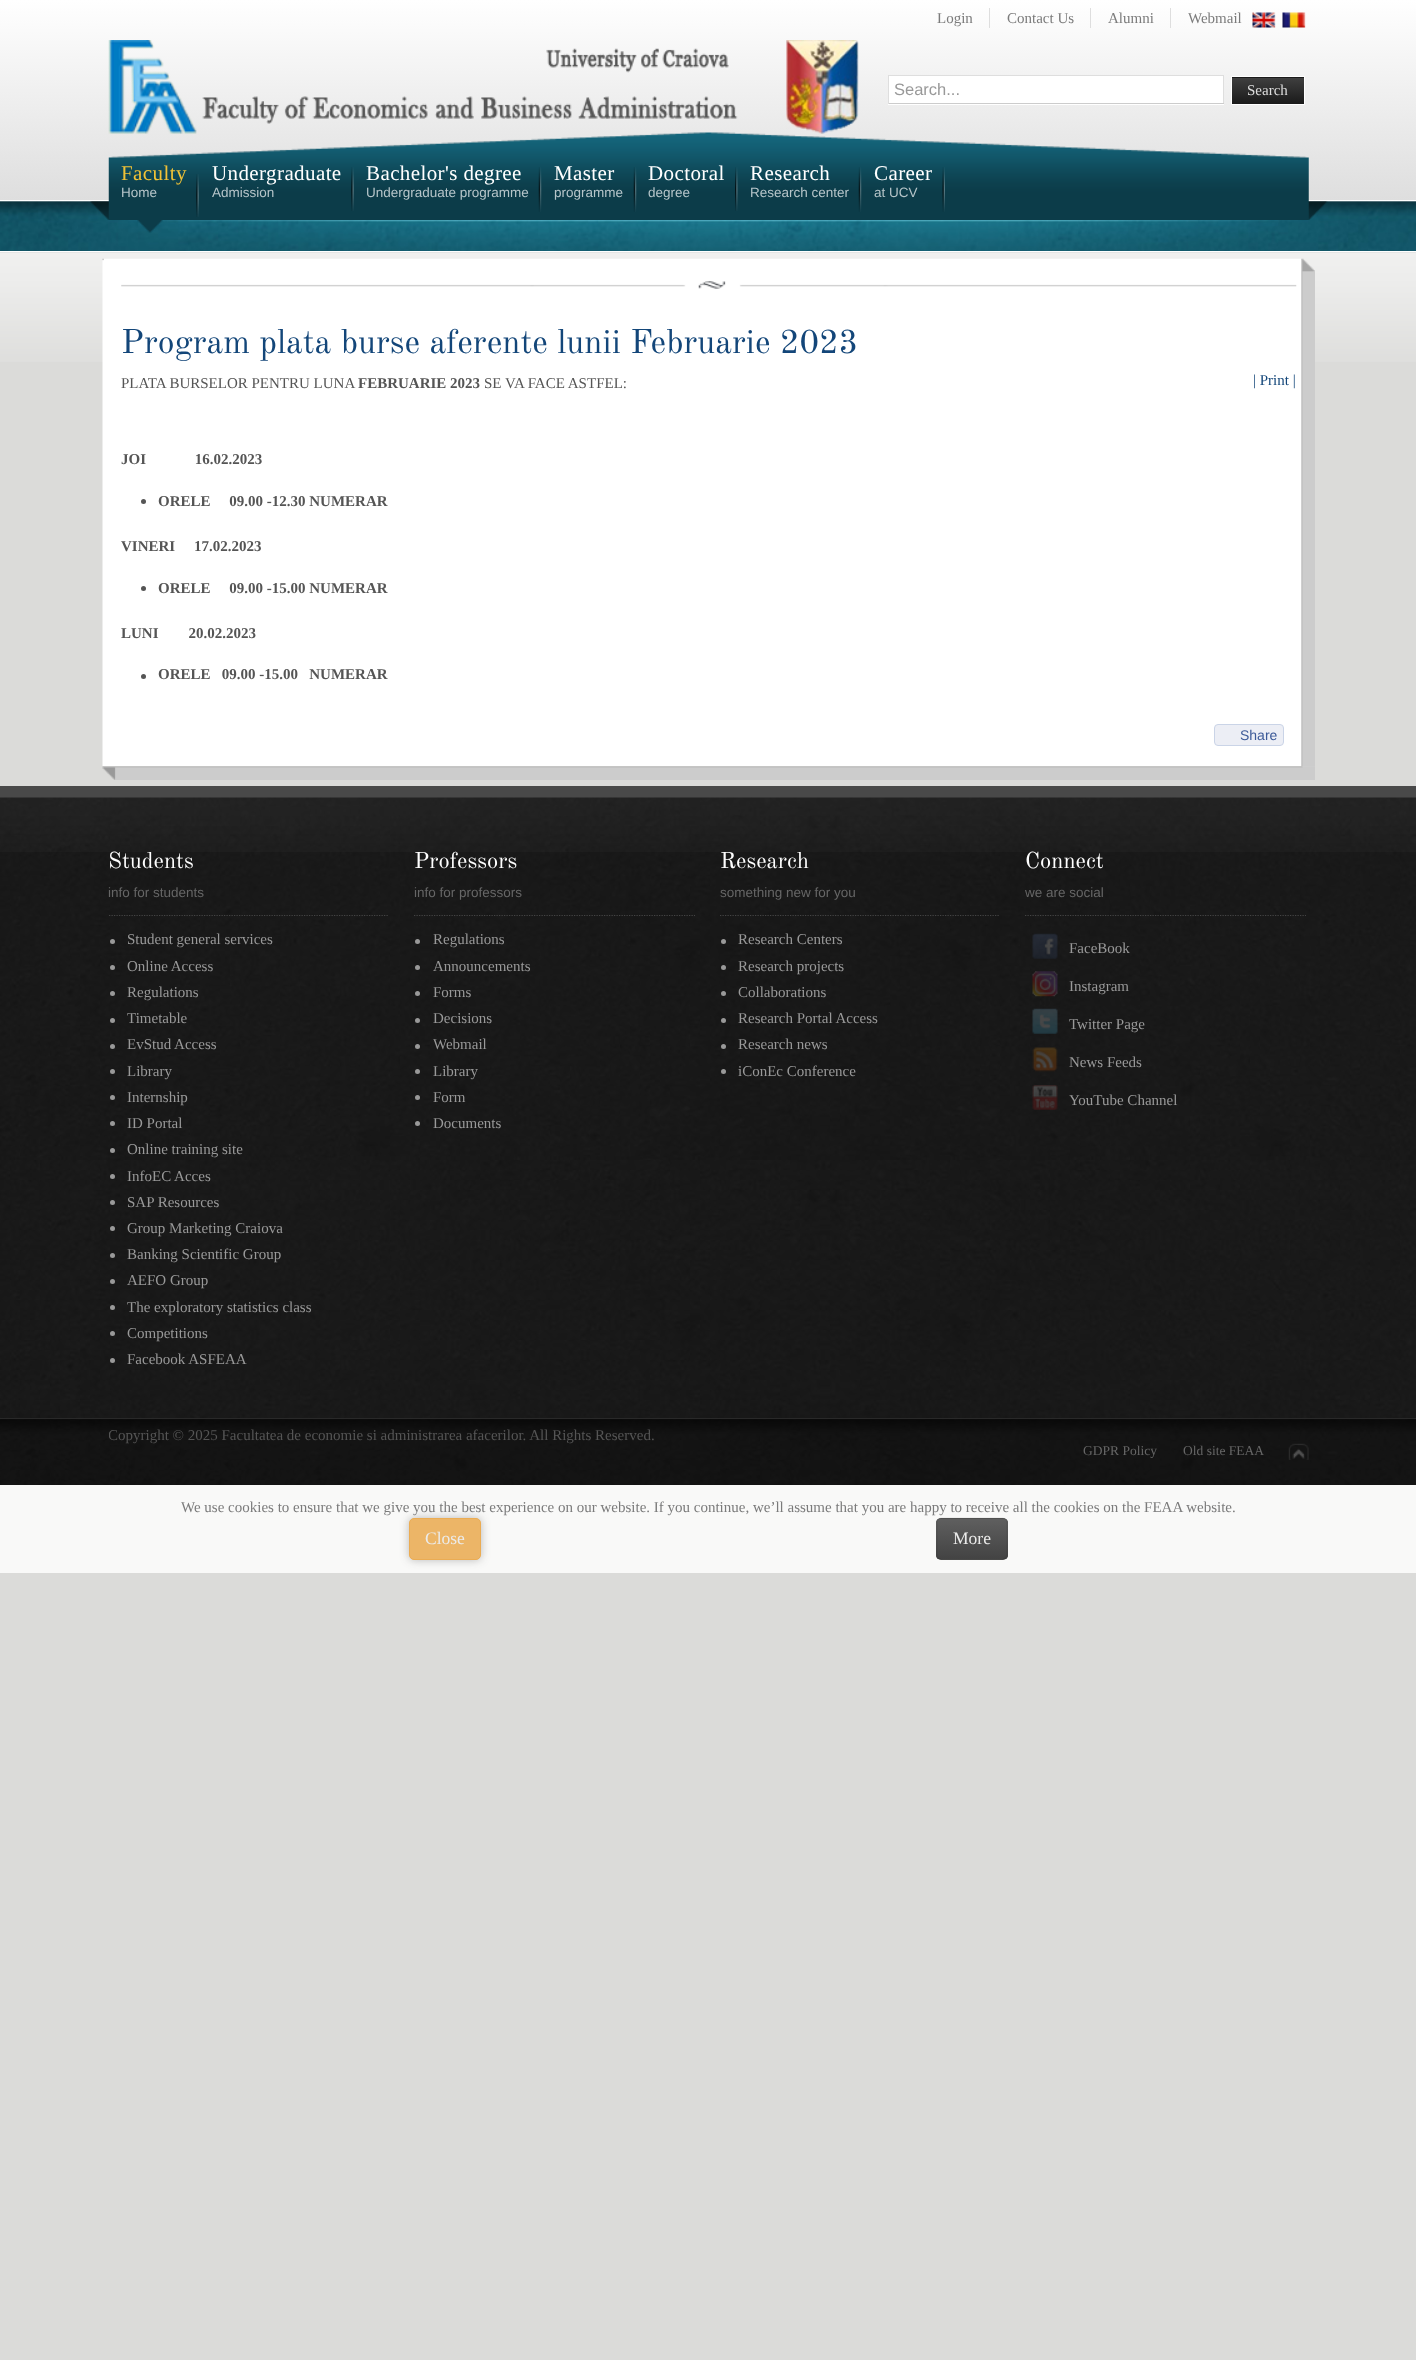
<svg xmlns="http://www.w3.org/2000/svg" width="1416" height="2360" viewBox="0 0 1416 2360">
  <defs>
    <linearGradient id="g1" gradientUnits="userSpaceOnUse" x1="0" y1="0" x2="0" y2="200"><stop offset="0" stop-color="#fff"/><stop offset="1" stop-color="#dedede"/></linearGradient>
    <linearGradient id="g2" gradientUnits="userSpaceOnUse" x1="0" y1="200" x2="0" y2="400"><stop offset="0" stop-color="#fff"/><stop offset="1" stop-color="#dedede"/></linearGradient>
    <linearGradient id="g3" gradientUnits="userSpaceOnUse" x1="1233" y1="51" x2="1233" y2="78"><stop offset="0" stop-color="#3f3f3f"/><stop offset="1" stop-color="#1a1a1a"/></linearGradient>
    <linearGradient id="g4" gradientUnits="userSpaceOnUse" x1="1233" y1="78" x2="1233" y2="104"><stop offset="0" stop-color="#3f3f3f"/><stop offset="1" stop-color="#1a1a1a"/></linearGradient>
    <clipPath id="clip1"><rect x="936" y="1518" width="72" height="42" rx="5"/></clipPath>
    <linearGradient id="g5" gradientUnits="userSpaceOnUse" x1="972" y1="1519" x2="972" y2="1559"><stop offset="0" stop-color="#5f5f5f"/><stop offset="1" stop-color="#434343"/></linearGradient>
    <clipPath id="clip2"><path d="M109 1419h1200v41H109z"/></clipPath>
  </defs>
  <rect width="100%" height="100%" fill="#dbdbd9"/>
  <path d="M0 0h1416v200H0z" fill="url(#g1)"/>
  <path d="M0 200h1416v1H0z" fill="url(#g2)"/>
  <path d="M989 8h1v20H989z" fill="#dedede"/>
  <path d="M1090 8h1v20H1090z" fill="#dedede"/>
  <path d="M1170 8h1v20H1170z" fill="#dedede"/>
  <image x="1252" y="12" width="24" height="16" href="img/1.png"/>
  <image x="1282" y="12" width="24" height="16" href="img/2.png"/>
  <image x="108" y="40" width="751" height="94" href="img/3.png"/>
  <path d="M888 104V105H1224V76V104Z" fill="#fff"/>
  <path d="M889 76h334v27H889z" fill="#fff"/>
  <path d="M888 75h336v1H888z" fill="#dedede"/>
  <path d="M1223 75h1v29H1223z" fill="#dedede"/>
  <path d="M888 103h336v1H888z" fill="#ccc"/>
  <path d="M888 75h1v29H888z" fill="#dedede"/>
  <path d="M1231 77h74v1H1231z" fill="url(#g3)"/>
  <path d="M1232 78h72v26H1232z" fill="url(#g4)"/>
  <path d="M1231.5 76.5h73v28H1231.5z" fill="none" stroke="#fff"/>
  <image x="0" y="201" width="1416" height="50" href="img/4.png"/>
  <image x="90" y="132" width="1238" height="88" href="img/5.png"/>
  <image x="196" y="174" width="3" height="43" href="img/6.png"/>
  <image x="137" y="220" width="26" height="13" href="img/7.png"/>
  <image x="351" y="167" width="3" height="44" href="img/8.png"/>
  <image x="538" y="167" width="4" height="45" href="img/9.png"/>
  <image x="633" y="167" width="4" height="45" href="img/9.png"/>
  <image x="735" y="167" width="3" height="44" href="img/10.png"/>
  <image x="858" y="167" width="4" height="45" href="img/9.png"/>
  <image x="942" y="167" width="3" height="45" href="img/11.png"/>
  <image x="0" y="252" width="1416" height="110" href="img/12.png"/>
  <path d="M0 251h1416v1H0z" fill="#fff"/>
  <image x="102" y="258" width="1213" height="509" href="img/13.png"/>
  <image x="121" y="281" width="1176" height="8" href="img/14.png"/>
  <circle cx="143.5" cy="501.5" r="2.5" fill="#555"/>
  <circle cx="143.5" cy="588.5" r="2.5" fill="#555"/>
  <circle cx="143.5" cy="676.5" r="2.5" fill="#555"/>
  <rect x="1214.5" y="724.5" width="69" height="21" rx="3.5" fill="#eceef5" stroke="#cad4e7"/>
  <image x="102" y="766" width="1213" height="14" href="img/15.png"/>
  <image x="0" y="786" width="1416" height="699" href="img/16.png"/>
  <image x="0" y="786" width="1416" height="66" href="img/17.png"/>
  <path d="M109 915.5H389" fill="none" stroke="#444" stroke-width="1.2" stroke-dasharray="1.25 1.25"/>
  <circle cx="112.5" cy="941.5" r="2.5" fill="#999"/>
  <circle cx="112.5" cy="967.5" r="2.5" fill="#999"/>
  <circle cx="112.5" cy="993.5" r="2.5" fill="#999"/>
  <circle cx="112.5" cy="1020.5" r="2.5" fill="#999"/>
  <circle cx="112.5" cy="1046.5" r="2.5" fill="#999"/>
  <circle cx="112.5" cy="1071.5" r="2.5" fill="#999"/>
  <circle cx="112.5" cy="1097.5" r="2.5" fill="#999"/>
  <circle cx="112.5" cy="1123.5" r="2.5" fill="#999"/>
  <circle cx="112.5" cy="1150.5" r="2.5" fill="#999"/>
  <circle cx="112.5" cy="1176.5" r="2.5" fill="#999"/>
  <circle cx="112.5" cy="1202.5" r="2.5" fill="#999"/>
  <circle cx="112.5" cy="1228.5" r="2.5" fill="#999"/>
  <circle cx="112.5" cy="1255.5" r="2.5" fill="#999"/>
  <circle cx="112.5" cy="1281.5" r="2.5" fill="#999"/>
  <circle cx="112.5" cy="1307.5" r="2.5" fill="#999"/>
  <circle cx="112.5" cy="1333.5" r="2.5" fill="#999"/>
  <circle cx="112.5" cy="1360.5" r="2.5" fill="#999"/>
  <path d="M414 915.5H695" fill="none" stroke="#444" stroke-width="1.2" stroke-dasharray="1.25 1.25"/>
  <circle cx="417.5" cy="941.5" r="2.5" fill="#999"/>
  <circle cx="417.5" cy="967.5" r="2.5" fill="#999"/>
  <circle cx="417.5" cy="993.5" r="2.5" fill="#999"/>
  <circle cx="417.5" cy="1020.5" r="2.5" fill="#999"/>
  <circle cx="417.5" cy="1046.5" r="2.5" fill="#999"/>
  <circle cx="417.5" cy="1071.5" r="2.5" fill="#999"/>
  <circle cx="417.5" cy="1097.5" r="2.5" fill="#999"/>
  <circle cx="417.5" cy="1123.5" r="2.5" fill="#999"/>
  <path d="M720 915.5H1000" fill="none" stroke="#444" stroke-width="1.2" stroke-dasharray="1.25 1.25"/>
  <circle cx="723.5" cy="941.5" r="2.5" fill="#999"/>
  <circle cx="723.5" cy="967.5" r="2.5" fill="#999"/>
  <circle cx="723.5" cy="993.5" r="2.5" fill="#999"/>
  <circle cx="723.5" cy="1020.5" r="2.5" fill="#999"/>
  <circle cx="723.5" cy="1046.5" r="2.5" fill="#999"/>
  <circle cx="723.5" cy="1071.5" r="2.5" fill="#999"/>
  <path d="M1025 915.5H1306" fill="none" stroke="#444" stroke-width="1.2" stroke-dasharray="1.25 1.25"/>
  <image x="1032" y="933" width="26" height="26" href="img/18.png"/>
  <image x="1032" y="971" width="26" height="26" href="img/19.png"/>
  <image x="1032" y="1008" width="26" height="26" href="img/20.png"/>
  <image x="1032" y="1047" width="26" height="25" href="img/21.png"/>
  <image x="1032" y="1085" width="26" height="25" href="img/22.png"/>
  <image x="0" y="1419" width="1416" height="66" href="img/23.png"/>
  <path d="M0 1418h1416v1H0z" fill="#292929"/>
  <image x="1288" y="1443" width="21" height="17" href="img/24.png"/>
  <path d="M0 1485h1416v88H0z" fill="#f9f9f8"/>
  <rect x="409" y="1518" width="72" height="42" rx="5" fill="#2727274d" filter="blur(5px)"/>
  <rect x="409.5" y="1518.5" width="71" height="41" rx="4.5" fill="#ecb567" stroke="#ebac53"/>
  <rect x="936" y="1518" width="72" height="42" rx="5" fill="#545453"/>
  <g clip-path="url(#clip1)">
    <path d="M936 1519h72v40H936z" fill="url(#g5)"/>
  </g>
  <path d="M1005.5 1558L1003 1559.5H941L938 1558" fill="none" stroke="#27272740" stroke-width="1.2"/>
  <path d="M938 1558C937.5 1557.5 937 1556 937 1555V1522.5C937 1521.5 937.5 1520 938 1519.5C939 1518.5 940 1518 941 1518H1002.5C1003.5 1518 1005 1518.5 1005.5 1519.5C1006.5 1520 1007 1521.5 1007 1522.5V1555C1007 1556 1006.5 1557.5 1005.5 1558" fill="none" stroke="#2727271a" stroke-width="1.2"/>
  <g font-family="Liberation Serif" font-size="15" fill="#7b7b7b">
    <text x="937" y="23">Login</text>
    <text x="1007" y="23">Contact Us</text>
    <text x="1108" y="23">Alumni</text>
    <text x="1188" y="23">Webmail</text>
  </g>
  <text x="894" y="95" font-family="Liberation Sans" font-size="16.5" fill="#999">Search...</text>
  <text x="1247" y="95" font-family="Liberation Serif" font-size="15" fill="#dedede">Search</text>
  <text x="121" y="180" font-family="Liberation Serif" font-size="21" letter-spacing="0.4" fill="#f0c237">Faculty</text>
  <text x="121" y="197" font-family="Liberation Sans" font-size="13.5" fill="#b6c5c9">Home</text>
  <text x="212" y="180" font-family="Liberation Serif" font-size="21" letter-spacing="0.4" fill="#fff">Undergraduate</text>
  <text x="212" y="197" font-family="Liberation Sans" font-size="13.5" fill="#b6c5c9">Admission</text>
  <text x="366" y="180" font-family="Liberation Serif" font-size="21" letter-spacing="0.4" fill="#fff">Bachelor's degree</text>
  <text x="366" y="197" font-family="Liberation Sans" font-size="13.5" fill="#b6c5c9">Undergraduate programme</text>
  <text x="554" y="180" font-family="Liberation Serif" font-size="21" letter-spacing="0.4" fill="#fff">Master</text>
  <text x="554" y="197" font-family="Liberation Sans" font-size="13.5" fill="#b6c5c9">programme</text>
  <text x="648" y="180" font-family="Liberation Serif" font-size="21" letter-spacing="0.4" fill="#fff">Doctoral</text>
  <text x="648" y="197" font-family="Liberation Sans" font-size="13.5" fill="#b6c5c9">degree</text>
  <text x="750" y="180" font-family="Liberation Serif" font-size="21" letter-spacing="0.4" fill="#fff">Research</text>
  <text x="750" y="197" font-family="Liberation Sans" font-size="13.5" fill="#b6c5c9">Research center</text>
  <text x="874" y="180" font-family="Liberation Serif" font-size="21" letter-spacing="0.4" fill="#fff">Career</text>
  <text x="874" y="197" font-family="Liberation Sans" font-size="13.5" fill="#b6c5c9">at UCV</text>
  <text x="121" y="353" font-family="Old Standard TT" font-size="33.75" fill="#134679">Program plata burse aferente lunii Februarie 2023</text>
  <text x="121" y="388" font-family="Liberation Serif" font-size="15" fill="#555">PLATA BURSELOR PENTRU LUNA</text>
  <text x="358" y="388" font-family="Liberation Serif" font-size="15" font-weight="bold" fill="#555">FEBRUARIE 2023</text>
  <text x="484" y="388" font-family="Liberation Serif" font-size="15" fill="#555">SE VA FACE ASTFEL:</text>
  <text x="1253" y="385" font-family="Liberation Serif" font-size="15" fill="#134679">| Print |</text>
  <g font-family="Liberation Serif" font-size="15" font-weight="bold" fill="#555">
    <text x="121" y="464" xml:space="preserve">JOI             16.02.2023</text>
    <text x="158" y="506" xml:space="preserve">ORELE     09.00 -12.30 NUMERAR</text>
    <text x="121" y="551" xml:space="preserve">VINERI     17.02.2023</text>
    <text x="158" y="593" xml:space="preserve">ORELE     09.00 -15.00 NUMERAR</text>
    <text x="121" y="638" xml:space="preserve">LUNI        20.02.2023</text>
    <text x="158" y="679" xml:space="preserve">ORELE   09.00 -15.00   NUMERAR</text>
  </g>
  <text x="1240" y="740" font-family="Liberation Sans" font-size="14" fill="#3b5998">Share</text>
  <text x="108" y="868" font-family="Old Standard TT" font-size="22.5" fill="#fff">Students</text>
  <text x="108" y="897" font-family="Liberation Sans" font-size="13.5" fill="#666">info for students</text>
  <g font-family="Liberation Serif" font-size="15" fill="#999">
    <text x="127" y="944">Student general services</text>
    <text x="127" y="971">Online Access</text>
    <text x="127" y="997">Regulations</text>
    <text x="127" y="1023">Timetable</text>
    <text x="127" y="1049">EvStud Access</text>
    <text x="127" y="1076">Library</text>
    <text x="127" y="1102">Internship</text>
    <text x="127" y="1128">ID Portal</text>
    <text x="127" y="1154">Online training site</text>
    <text x="127" y="1181">InfoEC Acces</text>
    <text x="127" y="1207">SAP Resources</text>
    <text x="127" y="1233">Group Marketing Craiova</text>
    <text x="127" y="1259">Banking Scientific Group</text>
    <text x="127" y="1285">AEFO Group</text>
    <text x="127" y="1312">The exploratory statistics class</text>
    <text x="127" y="1338">Competitions</text>
    <text x="127" y="1364">Facebook ASFEAA</text>
  </g>
  <text x="414" y="868" font-family="Old Standard TT" font-size="22.5" fill="#fff">Professors</text>
  <text x="414" y="897" font-family="Liberation Sans" font-size="13.5" fill="#666">info for professors</text>
  <g font-family="Liberation Serif" font-size="15" fill="#999">
    <text x="433" y="944">Regulations</text>
    <text x="433" y="971">Announcements</text>
    <text x="433" y="997">Forms</text>
    <text x="433" y="1023">Decisions</text>
    <text x="433" y="1049">Webmail</text>
    <text x="433" y="1076">Library</text>
    <text x="433" y="1102">Form</text>
    <text x="433" y="1128">Documents</text>
  </g>
  <text x="720" y="868" font-family="Old Standard TT" font-size="22.5" fill="#fff">Research</text>
  <text x="720" y="897" font-family="Liberation Sans" font-size="13.5" fill="#666">something new for you</text>
  <g font-family="Liberation Serif" font-size="15" fill="#999">
    <text x="738" y="944">Research Centers</text>
    <text x="738" y="971">Research projects</text>
    <text x="738" y="997">Collaborations</text>
    <text x="738" y="1023">Research Portal Access</text>
    <text x="738" y="1049">Research news</text>
    <text x="738" y="1076">iConEc Conference</text>
  </g>
  <text x="1025" y="868" font-family="Old Standard TT" font-size="22.5" fill="#fff">Connect</text>
  <text x="1025" y="897" font-family="Liberation Sans" font-size="13.5" fill="#666">we are social</text>
  <g font-family="Liberation Serif" font-size="15" fill="#999">
    <text x="1069" y="953">FaceBook</text>
    <text x="1069" y="991">Instagram</text>
    <text x="1069" y="1029">Twitter Page</text>
    <text x="1069" y="1067">News Feeds</text>
    <text x="1069" y="1105">YouTube Channel</text>
  </g>
  <g clip-path="url(#clip2)">
    <text x="108" y="1440" font-family="Liberation Serif" font-size="15" fill="#555">Copyright © 2025 Facultatea de economie si administrarea afacerilor. All Rights Reserved.</text>
  </g>
  <g font-family="Liberation Serif" font-size="13.5" fill="#666">
    <text x="1083" y="1455">GDPR Policy</text>
    <text x="1183" y="1455">Old site FEAA</text>
  </g>
  <text x="181" y="1512" font-family="Liberation Serif" font-size="15" fill="#7b7b7b">We use cookies to ensure that we give you the best experience on our website. If you continue, we’ll assume that you are happy to receive all the cookies on the FEAA website.</text>
  <g font-family="Liberation Serif" font-size="17.5" fill="#ebebea">
    <text x="425" y="1544">Close</text>
    <text x="953" y="1544">More</text>
  </g>
</svg>
